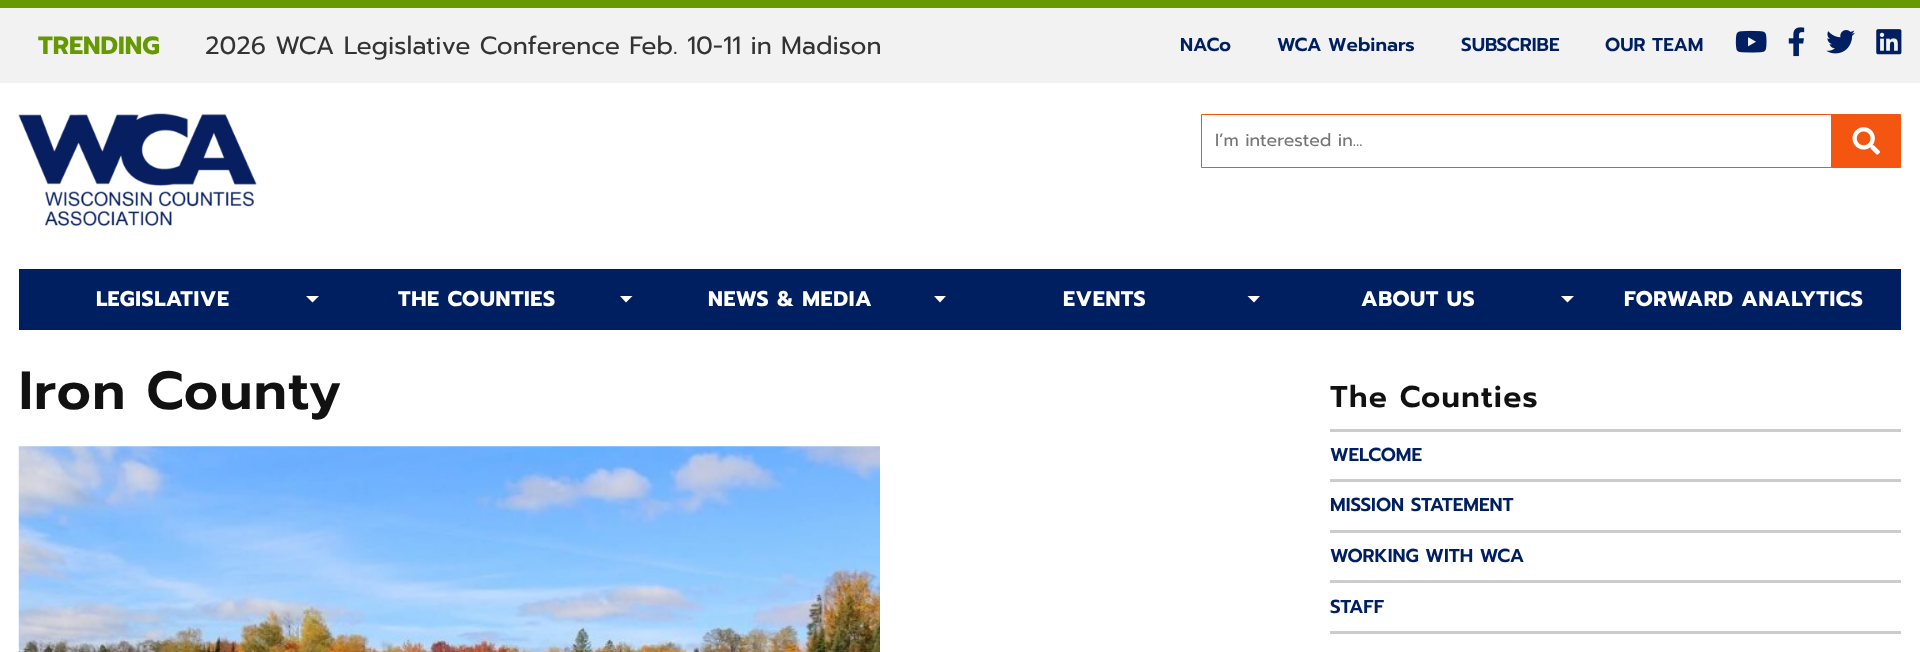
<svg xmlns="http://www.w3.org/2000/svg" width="1920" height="652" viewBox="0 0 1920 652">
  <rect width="100%" height="100%" fill="#fff"/>
  <path d="M0 0h1920v8H0z" fill="#669800"/>
  <path d="M0 8h1920v75H0z" fill="#f2f2f2"/>
  <image x="1735" y="30" width="32" height="23" href="img/1.png"/>
  <image x="1788" y="27" width="17" height="30" href="img/2.png"/>
  <image x="1826" y="30" width="29" height="24" href="img/3.png"/>
  <image x="1876" y="29" width="26" height="26" href="img/4.png"/>
  <image x="18" y="113" width="239" height="113" href="img/5.png"/>
  <path d="M1201.5 114.5h699v53H1201.5z" fill="none" stroke="#f45611"/>
  <path d="M1831 115h69v52H1831z" fill="#f45611"/>
  <image x="1852" y="127" width="28" height="28" href="img/6.png"/>
  <path d="M19 269h1882v61H19z" fill="#001f60"/>
  <path d="M306 296H319L312.5 302.5Z" fill="#fff"/>
  <path d="M620 296H632.5L626 302.5Z" fill="#fff"/>
  <path d="M934 296H946L940 302.5Z" fill="#fff"/>
  <path d="M1247.5 296H1260L1254 302.5Z" fill="#fff"/>
  <path d="M1561 296H1574L1567.5 302.5Z" fill="#fff"/>
  <image x="18" y="446" width="862" height="206" href="img/7.png"/>
  <path d="M1330 429h571v3H1330z" fill="#ccc"/>
  <path d="M1330 479h571v3H1330z" fill="#ccc"/>
  <path d="M1330 530h571v3H1330z" fill="#ccc"/>
  <path d="M1330 580h571v3H1330z" fill="#ccc"/>
  <path d="M1330 631h571v3H1330z" fill="#ccc"/>
  <text x="38" y="54" font-family="Prompt" font-size="25" font-weight="bold" fill="#669800">TRENDING</text>
  <text x="205" y="54" font-family="Prompt" font-size="25" fill="#333">2026 WCA Legislative Conference Feb. 10-11 in Madison</text>
  <g font-family="Prompt" font-size="18.75" font-weight="600" fill="#001f60">
    <text x="1180" y="51">NACo</text>
    <text x="1277" y="51">WCA Webinars</text>
    <text x="1461" y="51">SUBSCRIBE</text>
    <text x="1605" y="51">OUR TEAM</text>
  </g>
  <text x="1215" y="146" font-family="Prompt" font-size="17.5" fill="#757575">I’m interested in...</text>
  <g font-family="Prompt" font-size="21.25" font-weight="bold" letter-spacing="0.6" fill="#fff">
    <text x="96" y="306">LEGISLATIVE</text>
    <text x="398" y="306">THE COUNTIES</text>
    <text x="708" y="306">NEWS &amp; MEDIA</text>
    <text x="1063" y="306">EVENTS</text>
    <text x="1361" y="306">ABOUT US</text>
    <text x="1624" y="306">FORWARD ANALYTICS</text>
  </g>
  <text x="19" y="409" font-family="Prompt" font-size="53.75" font-weight="600" letter-spacing="1.25" fill="#111">Iron County</text>
  <text x="1330" y="407" font-family="Prompt" font-size="30" font-weight="600" letter-spacing="1.25" fill="#111">The Counties</text>
  <g font-family="Prompt" font-size="18.75" font-weight="600" fill="#001f60">
    <text x="1330" y="461">WELCOME</text>
    <text x="1330" y="511">MISSION STATEMENT</text>
    <text x="1330" y="562">WORKING WITH WCA</text>
    <text x="1330" y="613">STAFF</text>
  </g>
</svg>
